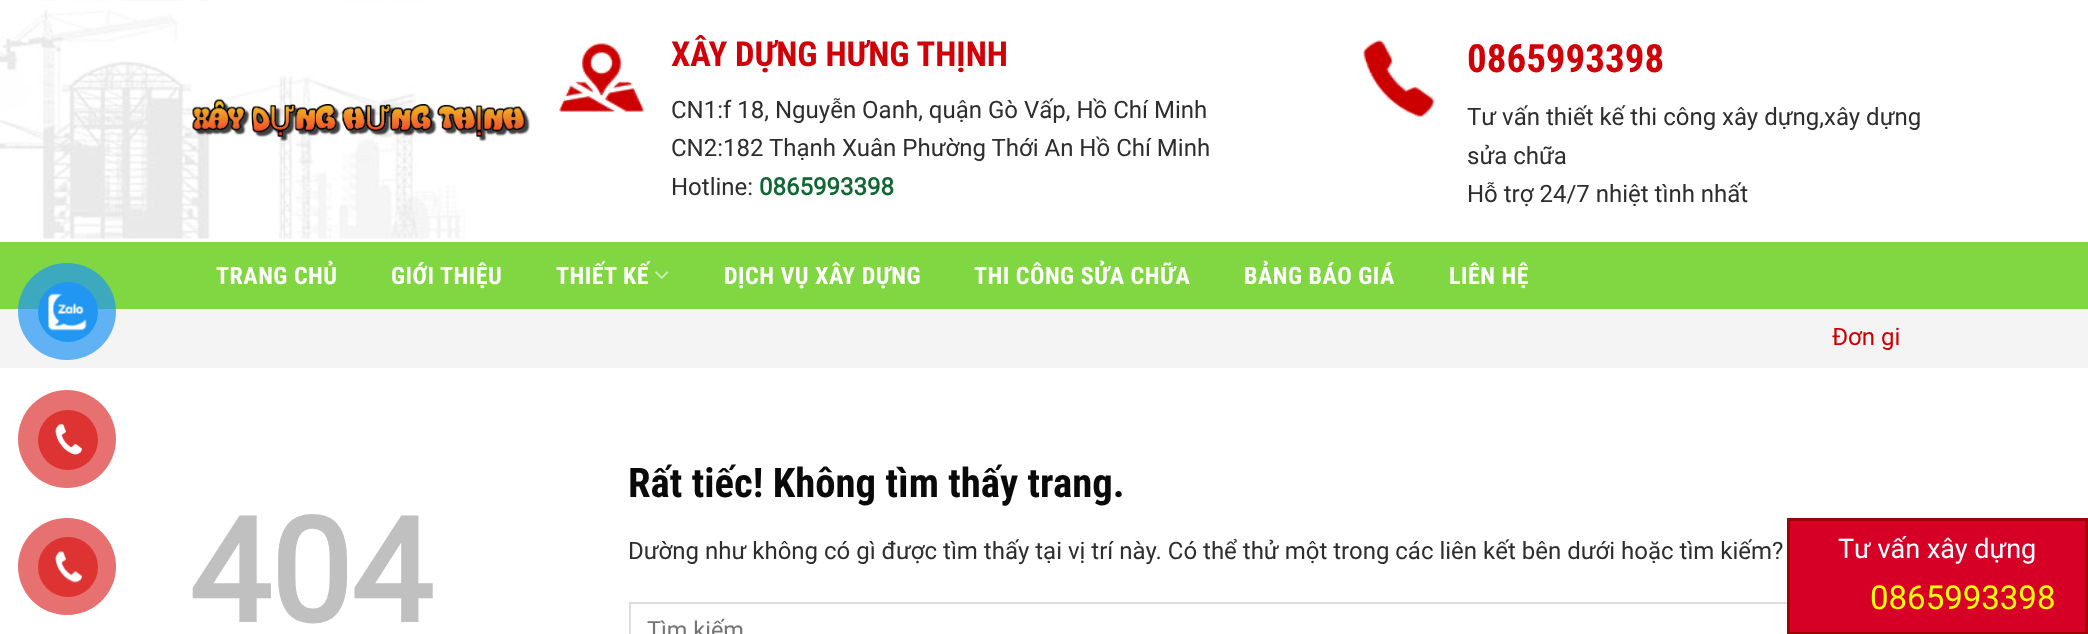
<svg xmlns="http://www.w3.org/2000/svg" width="2088" height="634" viewBox="0 0 2088 634">
  <rect width="100%" height="100%" fill="#fff"/>
  <path d="M0 242h2088v67H0z" fill="#81d742"/>
  <path d="M0 309h2088v59H0z" fill="#f4f4f4"/>
  <rect x="18" y="263" width="98" height="97" rx="48.5" fill="#2196f3b3"/>
  <circle cx="68" cy="312" r="30" fill="#2196f3"/>
  <image x="48" y="293" width="39" height="38" href="img/1.png"/>
  <circle cx="67" cy="439" r="49" fill="#e77070"/>
  <circle cx="68" cy="440" r="30" fill="#d33"/>
  <image x="55" y="423" width="27" height="32" href="img/2.png"/>
  <rect x="18" y="518" width="98" height="97" rx="48.5" fill="#e77070"/>
  <circle cx="68" cy="567" r="30" fill="#d33"/>
  <image x="55" y="551" width="27" height="32" href="img/3.png"/>
  <image x="0" y="0" width="466" height="239" href="img/4.png"/>
  <image x="192" y="99" width="338" height="43" href="img/5.png"/>
  <image x="559" y="43" width="86" height="71" href="img/6.png"/>
  <image x="1363" y="39" width="72" height="79" href="img/7.png"/>
  <image x="655" y="271" width="14" height="8" href="img/8.png"/>
  <path d="M630 603h1208v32H630z" fill="none" stroke="#ddd" stroke-width="2"/>
  <path d="M1788.5 519.5h298v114H1788.5z" fill="#d60027" stroke="#9e0404" stroke-width="3"/>
  <text x="671" y="66" font-family="Roboto Condensed" font-size="34.5" font-weight="bold" fill="#d10007">XÂY DỰNG HƯNG THỊNH</text>
  <g font-family="Roboto" font-size="24" fill="#2d2d2d">
    <text x="671" y="118">CN1:f 18, Nguyễn Oanh, quận Gò Vấp, Hồ Chí Minh</text>
    <text x="671" y="156">CN2:182 Thạnh Xuân Phường Thới An Hồ Chí Minh</text>
    <text x="671" y="195">Hotline:</text>
  </g>
  <text x="759" y="195" font-family="Roboto" font-size="24" font-weight="bold" fill="#126633">0865993398</text>
  <text x="1467" y="72" font-family="Roboto Condensed" font-size="39" font-weight="bold" fill="#d10007">0865993398</text>
  <g font-family="Roboto" font-size="24" fill="#2d2d2d">
    <text x="1467" y="125">Tư vấn thiết kế thi công xây dựng,xây dựng</text>
    <text x="1467" y="164">sửa chữa</text>
    <text x="1467" y="202">Hỗ trợ 24/7 nhiệt tình nhất</text>
  </g>
  <g font-family="Roboto Condensed" font-size="24" font-weight="bold" letter-spacing="0.5" fill="#fff">
    <text x="216" y="284">TRANG CHỦ</text>
    <text x="391" y="284">GIỚI THIỆU</text>
    <text x="556" y="284">THIẾT KẾ</text>
    <text x="724" y="284">DỊCH VỤ XÂY DỰNG</text>
    <text x="974" y="284">THI CÔNG SỬA CHỮA</text>
    <text x="1244" y="284">BẢNG BÁO GIÁ</text>
    <text x="1449" y="284">LIÊN HỆ</text>
  </g>
  <text x="1832" y="345" font-family="Roboto" font-size="24" fill="#cd0000">Đơn gi</text>
  <text x="189" y="622" font-family="Roboto" font-size="144" font-weight="bold" fill="#c0c0c0">404</text>
  <text x="628" y="497" font-family="Roboto Condensed" font-size="40.75" font-weight="bold" fill="#0a0a0a">Rất tiếc! Không tìm thấy trang.</text>
  <text x="628" y="559" font-family="Roboto" font-size="24" fill="#2d2d2d">Dường như không có gì được tìm thấy tại vị trí này. Có thể thử một trong các liên kết bên dưới hoặc tìm kiếm?</text>
  <text x="647" y="638" font-family="Roboto" font-size="23.5" fill="#757575">Tìm kiếm</text>
  <text x="1838" y="558" font-family="Roboto" font-size="27" fill="#fff">Tư vấn xây dựng</text>
  <text x="1870" y="609" font-family="Roboto" font-size="33" fill="#ff0">0865993398</text>
</svg>
